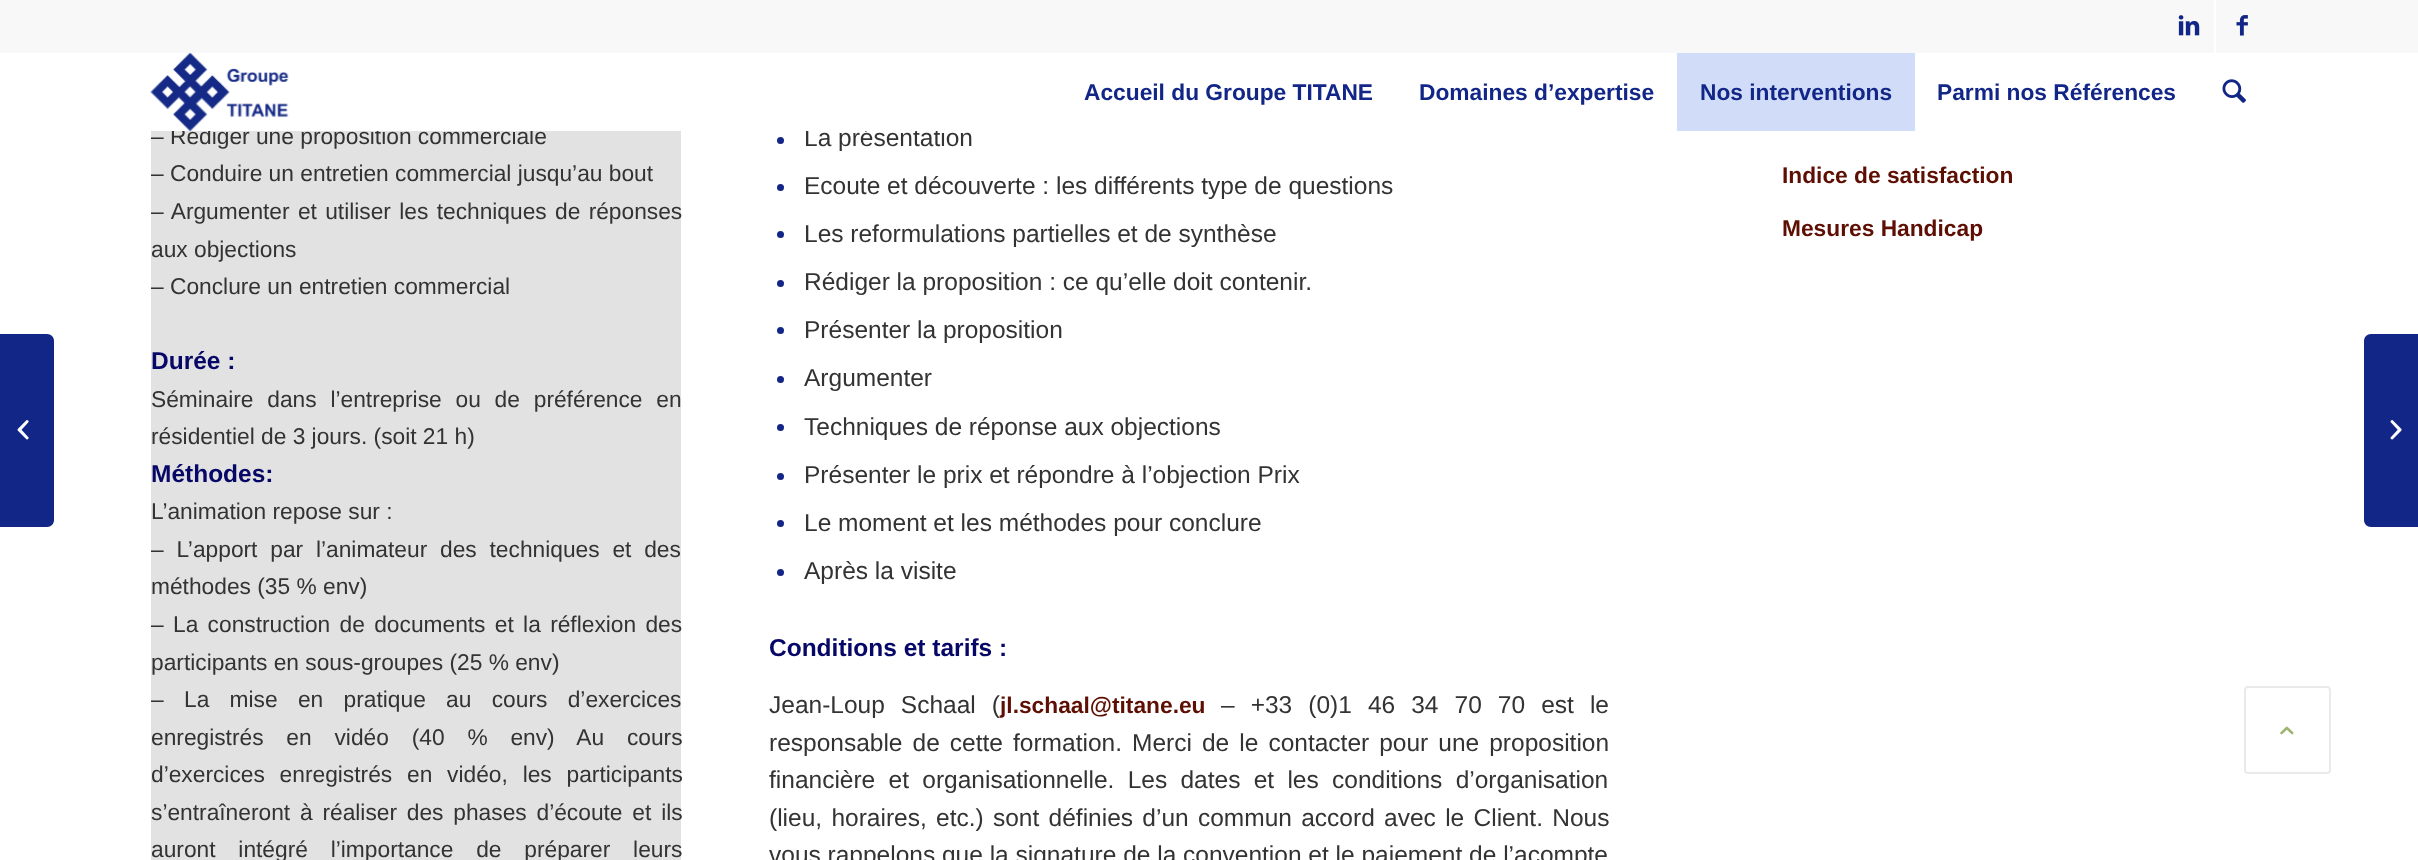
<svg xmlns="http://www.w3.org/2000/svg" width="2418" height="860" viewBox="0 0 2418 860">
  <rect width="100%" height="100%" fill="#fff"/>
  <path d="M0 0h2418v53H0z" fill="#f8f8f8"/>
  <path d="M2214 0h2v53H2214z" fill="#fff"/>
  <image x="2178" y="15" width="22" height="21" href="img/1.png"/>
  <image x="2236" y="15" width="12" height="21" href="img/2.png"/>
  <path d="M1677 53h238v78H1677z" fill="#d0dcf8"/>
  <image x="2222" y="79" width="24" height="24" href="img/4.png"/>
  <path d="M0 334H47C51 334 54 337 54 341V520C54 524 51 527 47 527H0Z" fill="#122687"/>
  <image x="17" y="420" width="12" height="20" href="img/5.png"/>
  <path d="M151 131h530v729H151z" fill="#e2e2e2"/>
  <circle cx="780.5" cy="140.5" r="3.5" fill="#122687"/>
  <circle cx="780.5" cy="187.5" r="3.5" fill="#122687"/>
  <circle cx="780.5" cy="234.5" r="3.5" fill="#122687"/>
  <circle cx="780.5" cy="283.5" r="3.5" fill="#122687"/>
  <circle cx="780.5" cy="330.5" r="3.5" fill="#122687"/>
  <circle cx="780.5" cy="379.5" r="3.5" fill="#122687"/>
  <circle cx="780.5" cy="427.5" r="3.5" fill="#122687"/>
  <circle cx="780.5" cy="476.5" r="3.5" fill="#122687"/>
  <circle cx="780.5" cy="523.5" r="3.5" fill="#122687"/>
  <circle cx="780.5" cy="572.5" r="3.5" fill="#122687"/>
  <path d="M2371 334H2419V527H2371C2367 527 2364 524 2364 520V341C2364 337 2367 334 2371 334Z" fill="#122687"/>
  <image x="2390" y="420" width="12" height="20" href="img/6.png"/>
  <rect x="2245" y="687" width="85" height="86" rx="3" fill="none" stroke="#eaeaea" stroke-width="2"/>
  <image x="2280" y="726" width="14" height="9" href="img/7.png"/>
  <g font-family="Liberation Sans" font-size="22.75" font-weight="bold" fill="#122687">
    <text x="1084" y="100">Accueil du Groupe TITANE</text>
    <text x="1419" y="100">Domaines d’expertise</text>
    <text x="1700" y="100">Nos interventions</text>
    <text x="1937" y="100">Parmi nos Références</text>
  </g>
  <g font-family="Liberation Sans" font-size="22.75" fill="#333">
    <text x="151" y="144">– Rédiger une proposition commerciale</text>
    <text x="151" y="181">– Conduire un entretien commercial jusqu’au bout</text>
    <text x="151" y="219" word-spacing="2">– Argumenter et utiliser les techniques de réponses</text>
    <text x="151" y="257">aux objections</text>
    <text x="151" y="294">– Conclure un entretien commercial</text>
  </g>
  <text x="151" y="369" font-family="Liberation Sans" font-size="24.5" font-weight="bold" fill="#070767">Durée :</text>
  <g font-family="Liberation Sans" font-size="22.75" fill="#333">
    <text x="151" y="407" word-spacing="7.5">Séminaire dans l’entreprise ou de préférence en</text>
    <text x="151" y="444">résidentiel de 3 jours. (soit 21 h)</text>
  </g>
  <text x="151" y="482" font-family="Liberation Sans" font-size="24.5" font-weight="bold" fill="#070767">Méthodes:</text>
  <g font-family="Liberation Sans" font-size="22.75" fill="#333">
    <text x="151" y="519">L’animation repose sur :</text>
    <text x="151" y="557" word-spacing="6.5">– L’apport par l’animateur des techniques et des</text>
    <text x="151" y="594">méthodes (35 % env)</text>
    <text x="151" y="632" word-spacing="3">– La construction de documents et la réflexion des</text>
    <text x="151" y="670">participants en sous-groupes (25 % env)</text>
    <text x="151" y="707" word-spacing="14">– La mise en pratique au cours d’exercices</text>
    <text x="151" y="745" word-spacing="16.5">enregistrés en vidéo (40 % env) Au cours</text>
    <text x="151" y="782" word-spacing="8.5">d’exercices enregistrés en vidéo, les participants</text>
    <text x="151" y="820" word-spacing="3.5">s’entraîneront à réaliser des phases d’écoute et ils</text>
    <text x="151" y="857" word-spacing="16.5">auront intégré l’importance de préparer leurs</text>
  </g>
  <text x="804" y="146" font-family="Liberation Sans" font-size="24.5" fill="#333">La présentation</text>
  <path d="M171 127h773v4H171z" fill="#fff"/>
  <image x="150" y="53" width="139" height="79" href="img/3.png"/>
  <g font-family="Liberation Sans" font-size="24.5" fill="#333">
    <text x="804" y="194">Ecoute et découverte : les différents type de questions</text>
    <text x="804" y="242">Les reformulations partielles et de synthèse</text>
    <text x="804" y="290">Rédiger la proposition : ce qu’elle doit contenir.</text>
    <text x="804" y="338">Présenter la proposition</text>
    <text x="804" y="386">Argumenter</text>
    <text x="804" y="435">Techniques de réponse aux objections</text>
    <text x="804" y="483">Présenter le prix et répondre à l’objection Prix</text>
    <text x="804" y="531">Le moment et les méthodes pour conclure</text>
    <text x="804" y="579">Après la visite</text>
  </g>
  <text x="769" y="656" font-family="Liberation Sans" font-size="24.5" font-weight="bold" fill="#070767">Conditions et tarifs :</text>
  <text x="769" y="713" word-spacing="9.25" font-family="Liberation Sans" font-size="24.5" fill="#333">Jean-Loup Schaal (</text>
  <text x="1000" y="713" font-family="Liberation Sans" font-size="22.75" font-weight="bold" fill="#5e0f03">jl.schaal@titane.eu</text>
  <g font-family="Liberation Sans" font-size="24.5" fill="#333">
    <text x="1221" y="713" word-spacing="9.25">– +33 (0)1 46 34 70 70 est le</text>
    <text x="769" y="751" word-spacing="3.25">responsable de cette formation. Merci de le contacter pour une proposition</text>
    <text x="769" y="788" word-spacing="6.5">financière et organisationnelle. Les dates et les conditions d’organisation</text>
    <text x="769" y="826" word-spacing="2.5">(lieu, horaires, etc.) sont définies d’un commun accord avec le Client. Nous</text>
    <text x="769" y="863">vous rappelons que la signature de la convention et le paiement de l’acompte</text>
  </g>
  <g font-family="Liberation Sans" font-size="22.75" font-weight="bold" fill="#5e0f03">
    <text x="1782" y="183">Indice de satisfaction</text>
    <text x="1782" y="236">Mesures Handicap</text>
  </g>
</svg>
